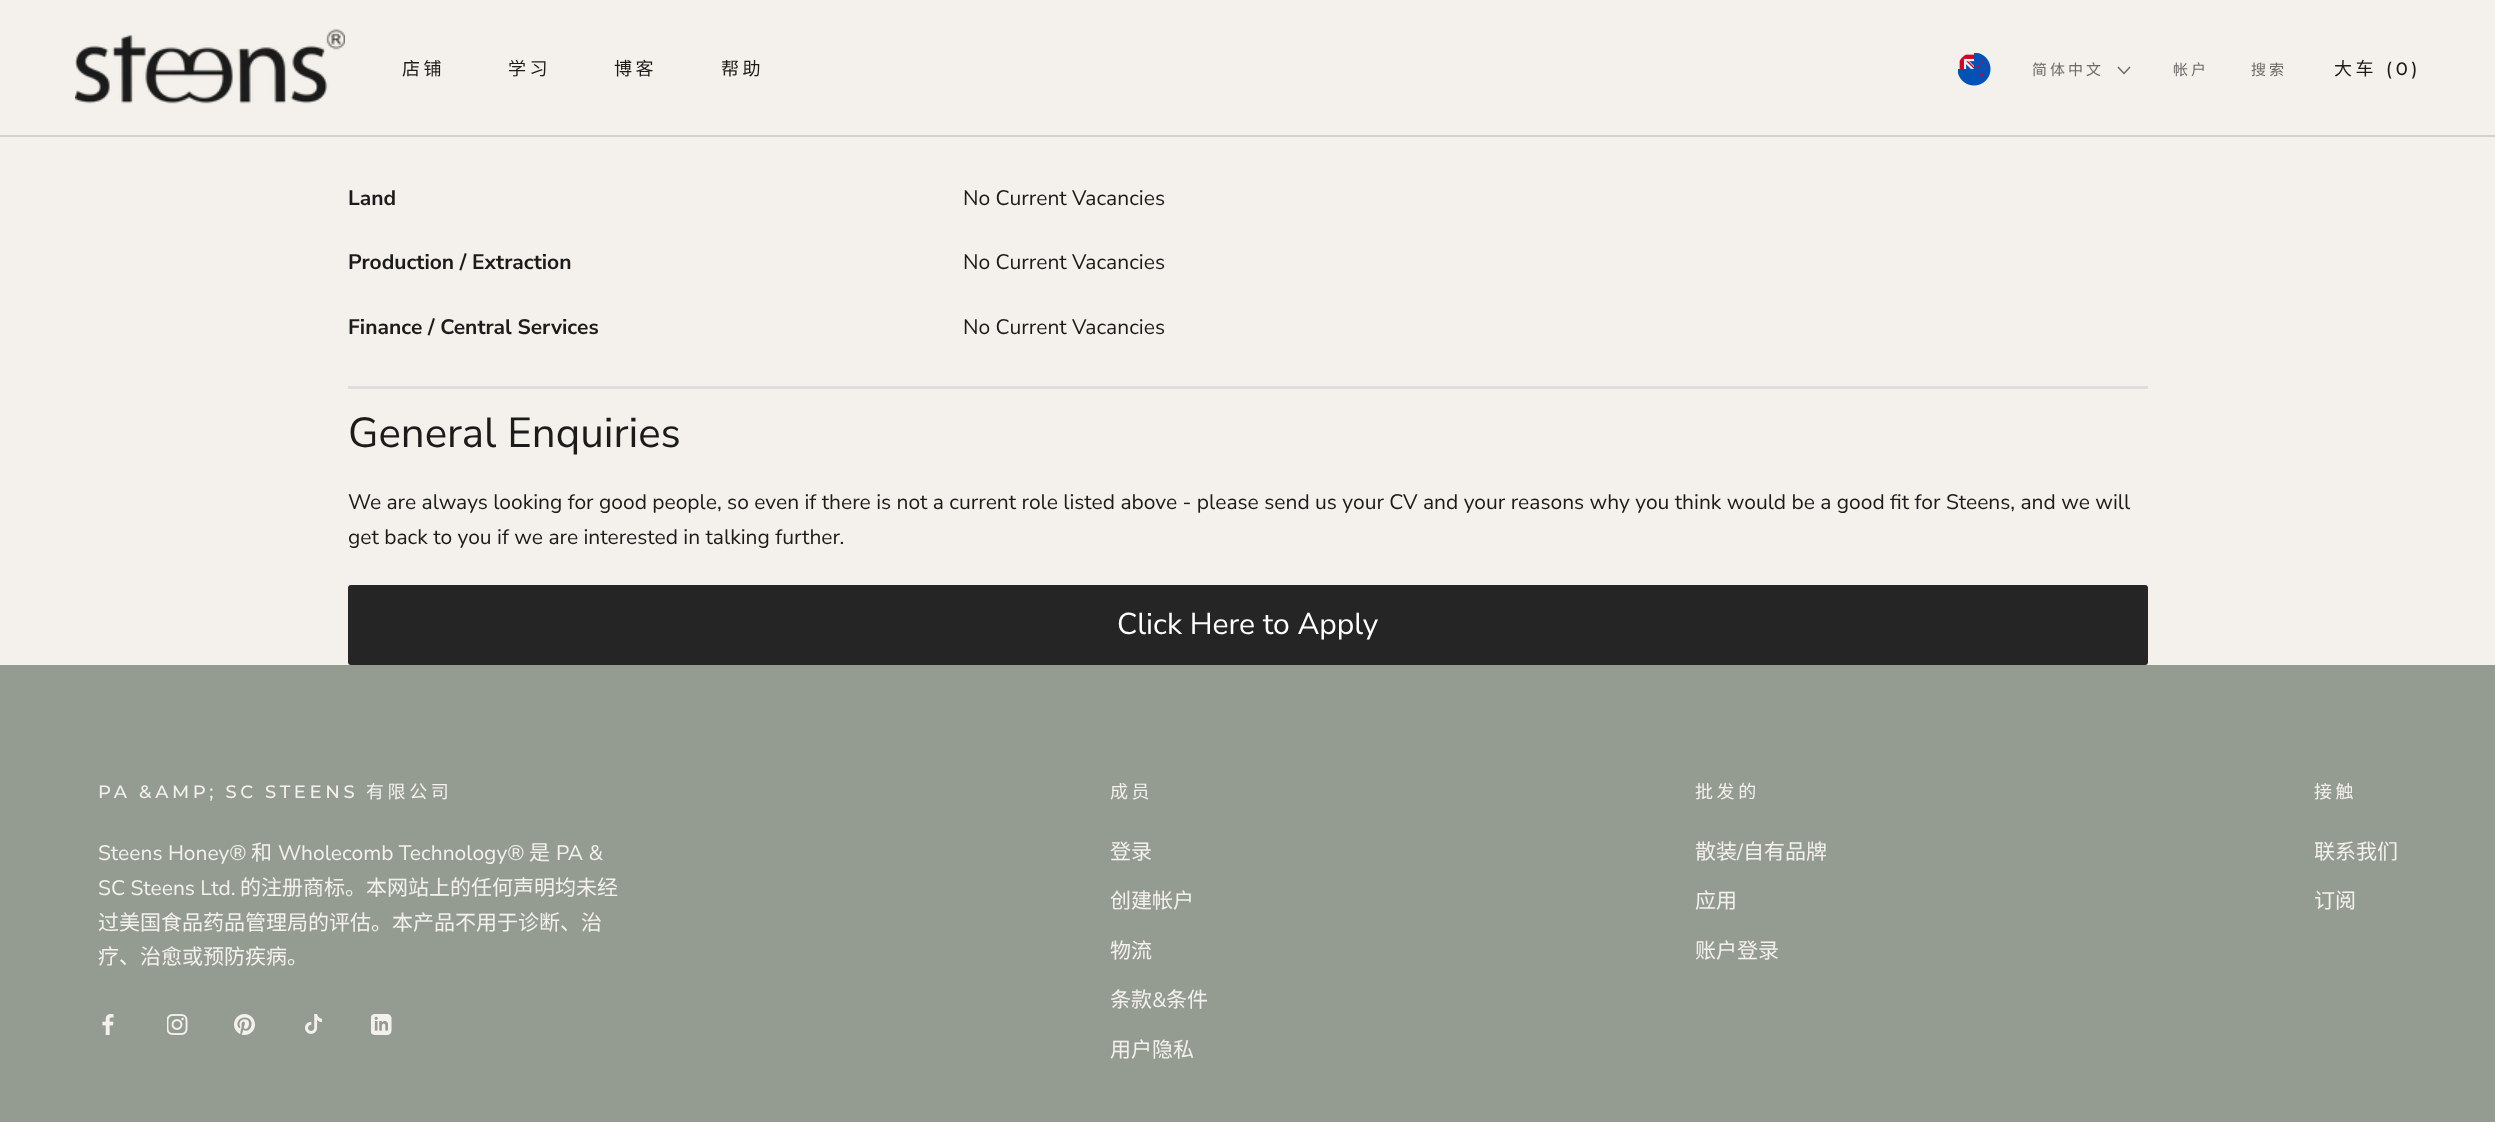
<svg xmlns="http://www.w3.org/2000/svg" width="2495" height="1122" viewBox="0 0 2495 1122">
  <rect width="100%" height="100%" fill="#f4f0eb"/>
  <path d="M0 135h2495v2H0z" fill="#d4d0cc"/>
  <image x="75" y="29" width="270" height="75" href="img/1.png"/>
  <image x="1958" y="53" width="33" height="33" href="img/2.png"/>
  <path d="M2129.5 67.5L2124 73.5L2118.5 67.5" fill="none" stroke="#6a6a6a" stroke-width="1.5" stroke-linecap="square"/>
  <path d="M348 386h1800v3H348z" fill="#ddd"/>
  <rect x="348" y="585" width="1800" height="80" rx="3" fill="#252525"/>
  <path d="M0 665h2495v457H0z" fill="#949c92"/>
  <image x="102" y="1014" width="12" height="21" href="img/3.png"/>
  <image x="167" y="1014" width="21" height="21" href="img/4.png"/>
  <image x="234" y="1014" width="21" height="21" href="img/5.png"/>
  <image x="305" y="1014" width="17" height="20" href="img/6.png"/>
  <image x="371" y="1014" width="21" height="21" href="img/7.png"/>
  <g font-family="Noto Sans CJK SC" font-size="18" letter-spacing="3.6" fill="#1c1b1b">
    <text x="402" y="75">店铺</text>
    <text x="508" y="75">学习</text>
    <text x="614" y="75">博客</text>
    <text x="721" y="75">帮助</text>
  </g>
  <g font-family="Noto Sans CJK SC" font-size="15" letter-spacing="3" fill="#6a6a6a">
    <text x="2032" y="75">简体中文</text>
    <text x="2173" y="75">帐户</text>
    <text x="2251" y="75">搜索</text>
  </g>
  <text x="2334" y="75" font-family="Noto Sans CJK SC" font-size="18" letter-spacing="3.6" fill="#1c1b1b">大车</text>
  <text x="2386" y="75" font-family="Montserrat" font-size="18" font-weight="500" letter-spacing="3.6" fill="#1c1b1b">(0)</text>
  <text x="348" y="205" font-family="Nunito Sans" font-size="21" font-weight="bold" fill="#1c1b1b">Land</text>
  <text x="963" y="205" font-family="Nunito Sans" font-size="21" fill="#1c1b1b">No Current Vacancies</text>
  <text x="348" y="269" font-family="Nunito Sans" font-size="21" font-weight="bold" fill="#1c1b1b">Production / Extraction</text>
  <text x="963" y="269" font-family="Nunito Sans" font-size="21" fill="#1c1b1b">No Current Vacancies</text>
  <text x="348" y="334" font-family="Nunito Sans" font-size="21" font-weight="bold" fill="#1c1b1b">Finance / Central Services</text>
  <text x="963" y="334" font-family="Nunito Sans" font-size="21" fill="#1c1b1b">No Current Vacancies</text>
  <text x="348" y="447" font-family="Nunito Sans" font-size="42" fill="#1c1b1b">General Enquiries</text>
  <g font-family="Nunito Sans" font-size="21" fill="#1c1b1b">
    <text x="348" y="509">We are always looking for good people, so even if there is not a current role listed above - please send us your CV and your reasons why you think would be a good fit for Steens, and we will</text>
    <text x="348" y="544">get back to you if we are interested in talking further.</text>
  </g>
  <text x="1117" y="634" font-family="Nunito Sans" font-size="30" fill="#fff">Click Here to Apply</text>
  <text x="98" y="798" font-family="Montserrat" font-size="18" font-weight="500" letter-spacing="3.6" fill="#f4f0eb">PA &amp;AMP; SC STEENS</text>
  <text x="366" y="798" font-family="Noto Sans CJK SC" font-size="18" letter-spacing="3.6" fill="#f4f0eb">有限公司</text>
  <text x="98" y="860" font-family="Nunito Sans" font-size="21" fill="#f4f0eb">Steens Honey®</text>
  <text x="251" y="860" font-family="Noto Sans CJK SC" font-size="21" fill="#f4f0eb">和</text>
  <text x="278" y="860" font-family="Nunito Sans" font-size="21" fill="#f4f0eb">Wholecomb Technology®</text>
  <text x="529" y="860" font-family="Noto Sans CJK SC" font-size="21" fill="#f4f0eb">是</text>
  <g font-family="Nunito Sans" font-size="21" fill="#f4f0eb">
    <text x="556" y="860">PA &amp;</text>
    <text x="98" y="895">SC Steens Ltd.</text>
  </g>
  <g font-family="Noto Sans CJK SC" font-size="21" fill="#f4f0eb">
    <text x="240" y="895">的注册商标。本网站上的任何声明均未经</text>
    <text x="98" y="930">过美国食品药品管理局的评估。本产品不用于诊断、治</text>
    <text x="98" y="964">疗、治愈或预防疾病。</text>
  </g>
  <text x="1110" y="798" font-family="Noto Sans CJK SC" font-size="18" letter-spacing="3.6" fill="#f4f0eb">成员</text>
  <g font-family="Noto Sans CJK SC" font-size="21" fill="#f4f0eb">
    <text x="1110" y="859">登录</text>
    <text x="1110" y="908">创建帐户</text>
    <text x="1110" y="958">物流</text>
    <text x="1110" y="1007">条款</text>
  </g>
  <text x="1152" y="1007" font-family="Nunito Sans" font-size="21" fill="#f4f0eb">&amp;</text>
  <g font-family="Noto Sans CJK SC" font-size="21" fill="#f4f0eb">
    <text x="1166" y="1007">条件</text>
    <text x="1110" y="1057">用户隐私</text>
  </g>
  <text x="1695" y="798" font-family="Noto Sans CJK SC" font-size="18" letter-spacing="3.6" fill="#f4f0eb">批发的</text>
  <text x="1695" y="859" font-family="Noto Sans CJK SC" font-size="21" fill="#f4f0eb">散装</text>
  <text x="1737" y="859" font-family="Nunito Sans" font-size="21" fill="#f4f0eb">/</text>
  <g font-family="Noto Sans CJK SC" font-size="21" fill="#f4f0eb">
    <text x="1743" y="859">自有品牌</text>
    <text x="1695" y="908">应用</text>
    <text x="1695" y="958">账户登录</text>
  </g>
  <text x="2314" y="798" font-family="Noto Sans CJK SC" font-size="18" letter-spacing="3.6" fill="#f4f0eb">接触</text>
  <g font-family="Noto Sans CJK SC" font-size="21" fill="#f4f0eb">
    <text x="2314" y="859">联系我们</text>
    <text x="2314" y="908">订阅</text>
  </g>
</svg>
